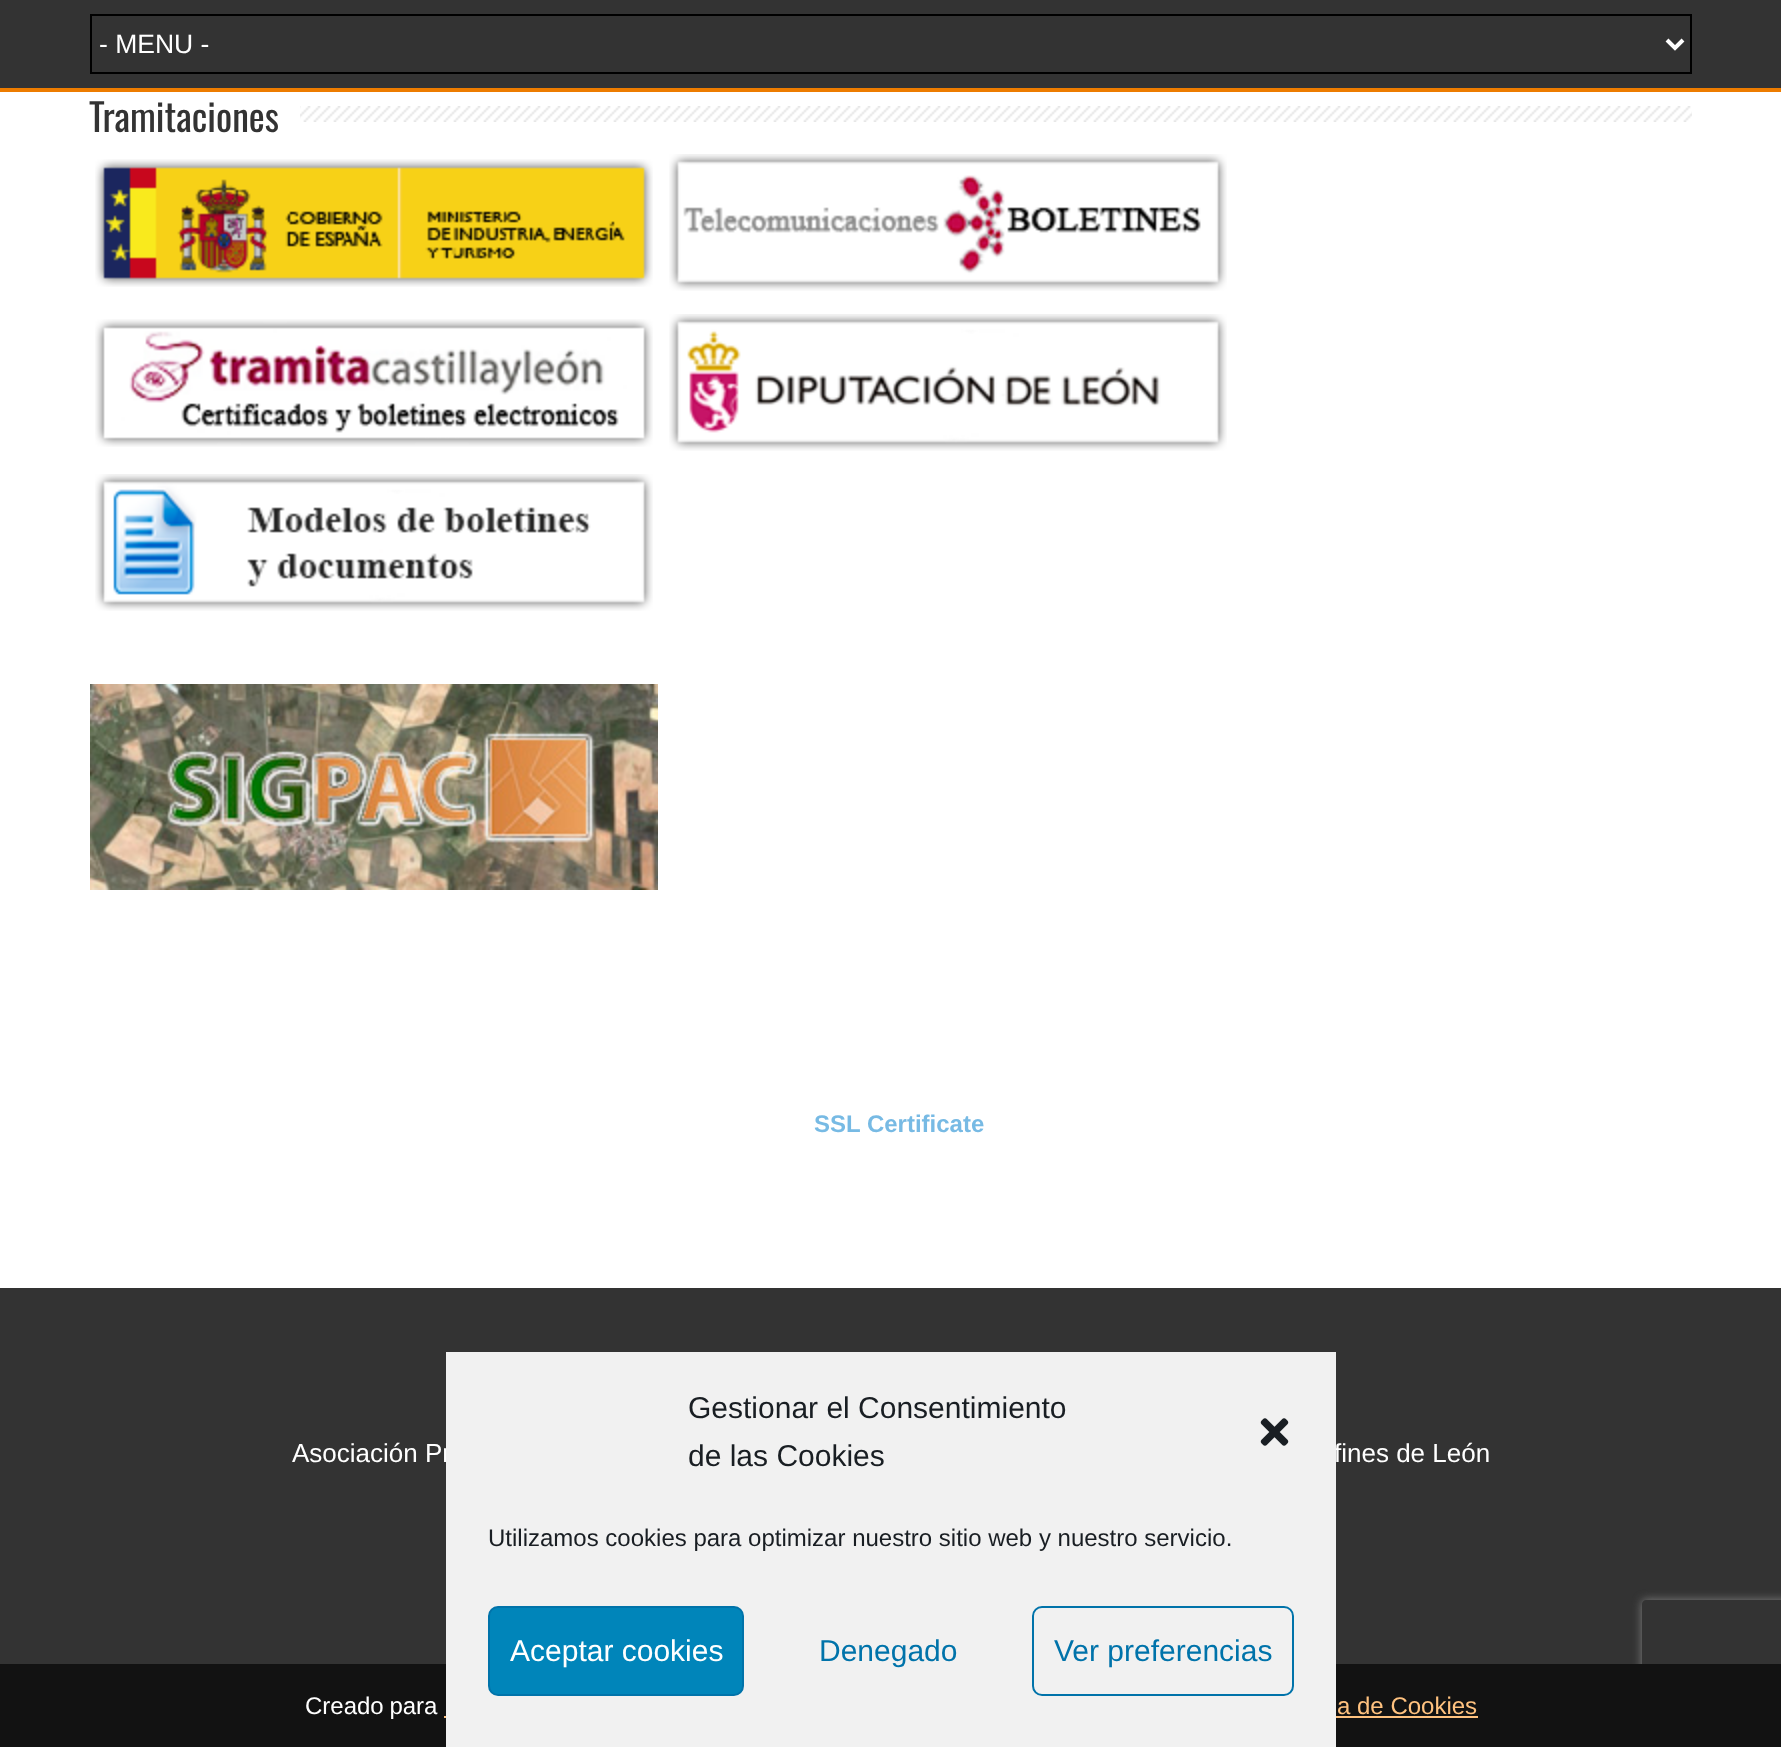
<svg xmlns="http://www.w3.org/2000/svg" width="1781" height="1747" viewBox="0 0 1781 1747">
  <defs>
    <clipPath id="clip1"><path d="M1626 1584H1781V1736H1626ZM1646 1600H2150C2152 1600 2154 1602 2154 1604V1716C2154 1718 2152 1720 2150 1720H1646C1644 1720 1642 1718 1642 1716V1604C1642 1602 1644 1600 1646 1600Z" clip-rule="evenodd"/></clipPath>
  </defs>
  <rect width="100%" height="100%" fill="#fff"/>
  <path d="M0 0h1781v88H0z" fill="#333"/>
  <path d="M0 88h1781v4H0z" fill="#ed7c00"/>
  <path d="M91 15h1600v58H91z" fill="none" stroke="#000" stroke-width="2"/>
  <path d="M1667 40L1675 48L1683 40" fill="none" stroke="#fff" stroke-width="4"/>
  <image x="300" y="106" width="1392" height="16" href="img/1.png"/>
  <image x="95" y="159" width="558" height="128" href="img/2.png"/>
  <image x="669" y="154" width="558" height="137" href="img/3.png"/>
  <image x="95" y="319" width="558" height="128" href="img/4.png"/>
  <image x="669" y="314" width="558" height="137" href="img/5.png"/>
  <image x="95" y="474" width="558" height="137" href="img/6.png"/>
  <image x="90" y="684" width="568" height="206" href="img/7.png"/>
  <path d="M0 1288h1781v376H0z" fill="#333"/>
  <g clip-path="url(#clip1)">
    <rect x="1642" y="1600" width="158" height="120" rx="4" fill="#808080" filter="blur(5px)"/>
  </g>
  <path d="M0 1664h1781v83H0z" fill="#121212"/>
  <path d="M1336 1716h142v2H1336z" fill="#ffc27f"/>
  <path d="M444 1716h2v2H444z" fill="#ffc27f"/>
  <text x="99" y="53" font-family="Liberation Sans" font-size="26.5" fill="#fff">- MENU -</text>
  <text x="89" y="132" font-family="Oswald" font-size="38" fill="#333">Tramitaciones</text>
  <text x="814" y="1132" font-family="Liberation Sans" font-size="24" font-weight="bold" fill="#77bae4">SSL Certificate</text>
  <g font-family="Liberation Sans" font-size="26" fill="#fff">
    <text x="292" y="1462">Asociación Pr</text>
    <text x="1334" y="1462">fines de León</text>
  </g>
  <text x="305" y="1714" word-spacing="-1" font-family="Liberation Sans" font-size="24" fill="#fff">Creado para</text>
  <text x="1337" y="1714" font-family="Liberation Sans" font-size="24" fill="#ffc27f">a de Cookies</text>
  <path d="M446 1352h890v395H446z" fill="#f1f1f1"/>
  <g font-family="Liberation Sans" font-size="30" fill="#191e23">
    <text x="688" y="1418">Gestionar el Consentimiento</text>
    <text x="688" y="1466">de las Cookies</text>
  </g>
  <image x="1260" y="1418" width="29" height="28" href="img/8.png"/>
  <text x="488" y="1546" font-family="Liberation Sans" font-size="24" fill="#191e23">Utilizamos cookies para optimizar nuestro sitio web y nuestro servicio.</text>
  <rect x="489" y="1607" width="254" height="88" rx="9" fill="#0085ba" stroke="#0073aa" stroke-width="2"/>
  <text x="510" y="1661" font-family="Liberation Sans" font-size="30" fill="#fff">Aceptar cookies</text>
  <text x="819" y="1661" font-family="Liberation Sans" font-size="30" fill="#0073aa">Denegado</text>
  <rect x="1033" y="1607" width="260" height="88" rx="9" fill="none" stroke="#0073aa" stroke-width="2"/>
  <text x="1054" y="1661" font-family="Liberation Sans" font-size="30" fill="#0073aa">Ver preferencias</text>
</svg>
